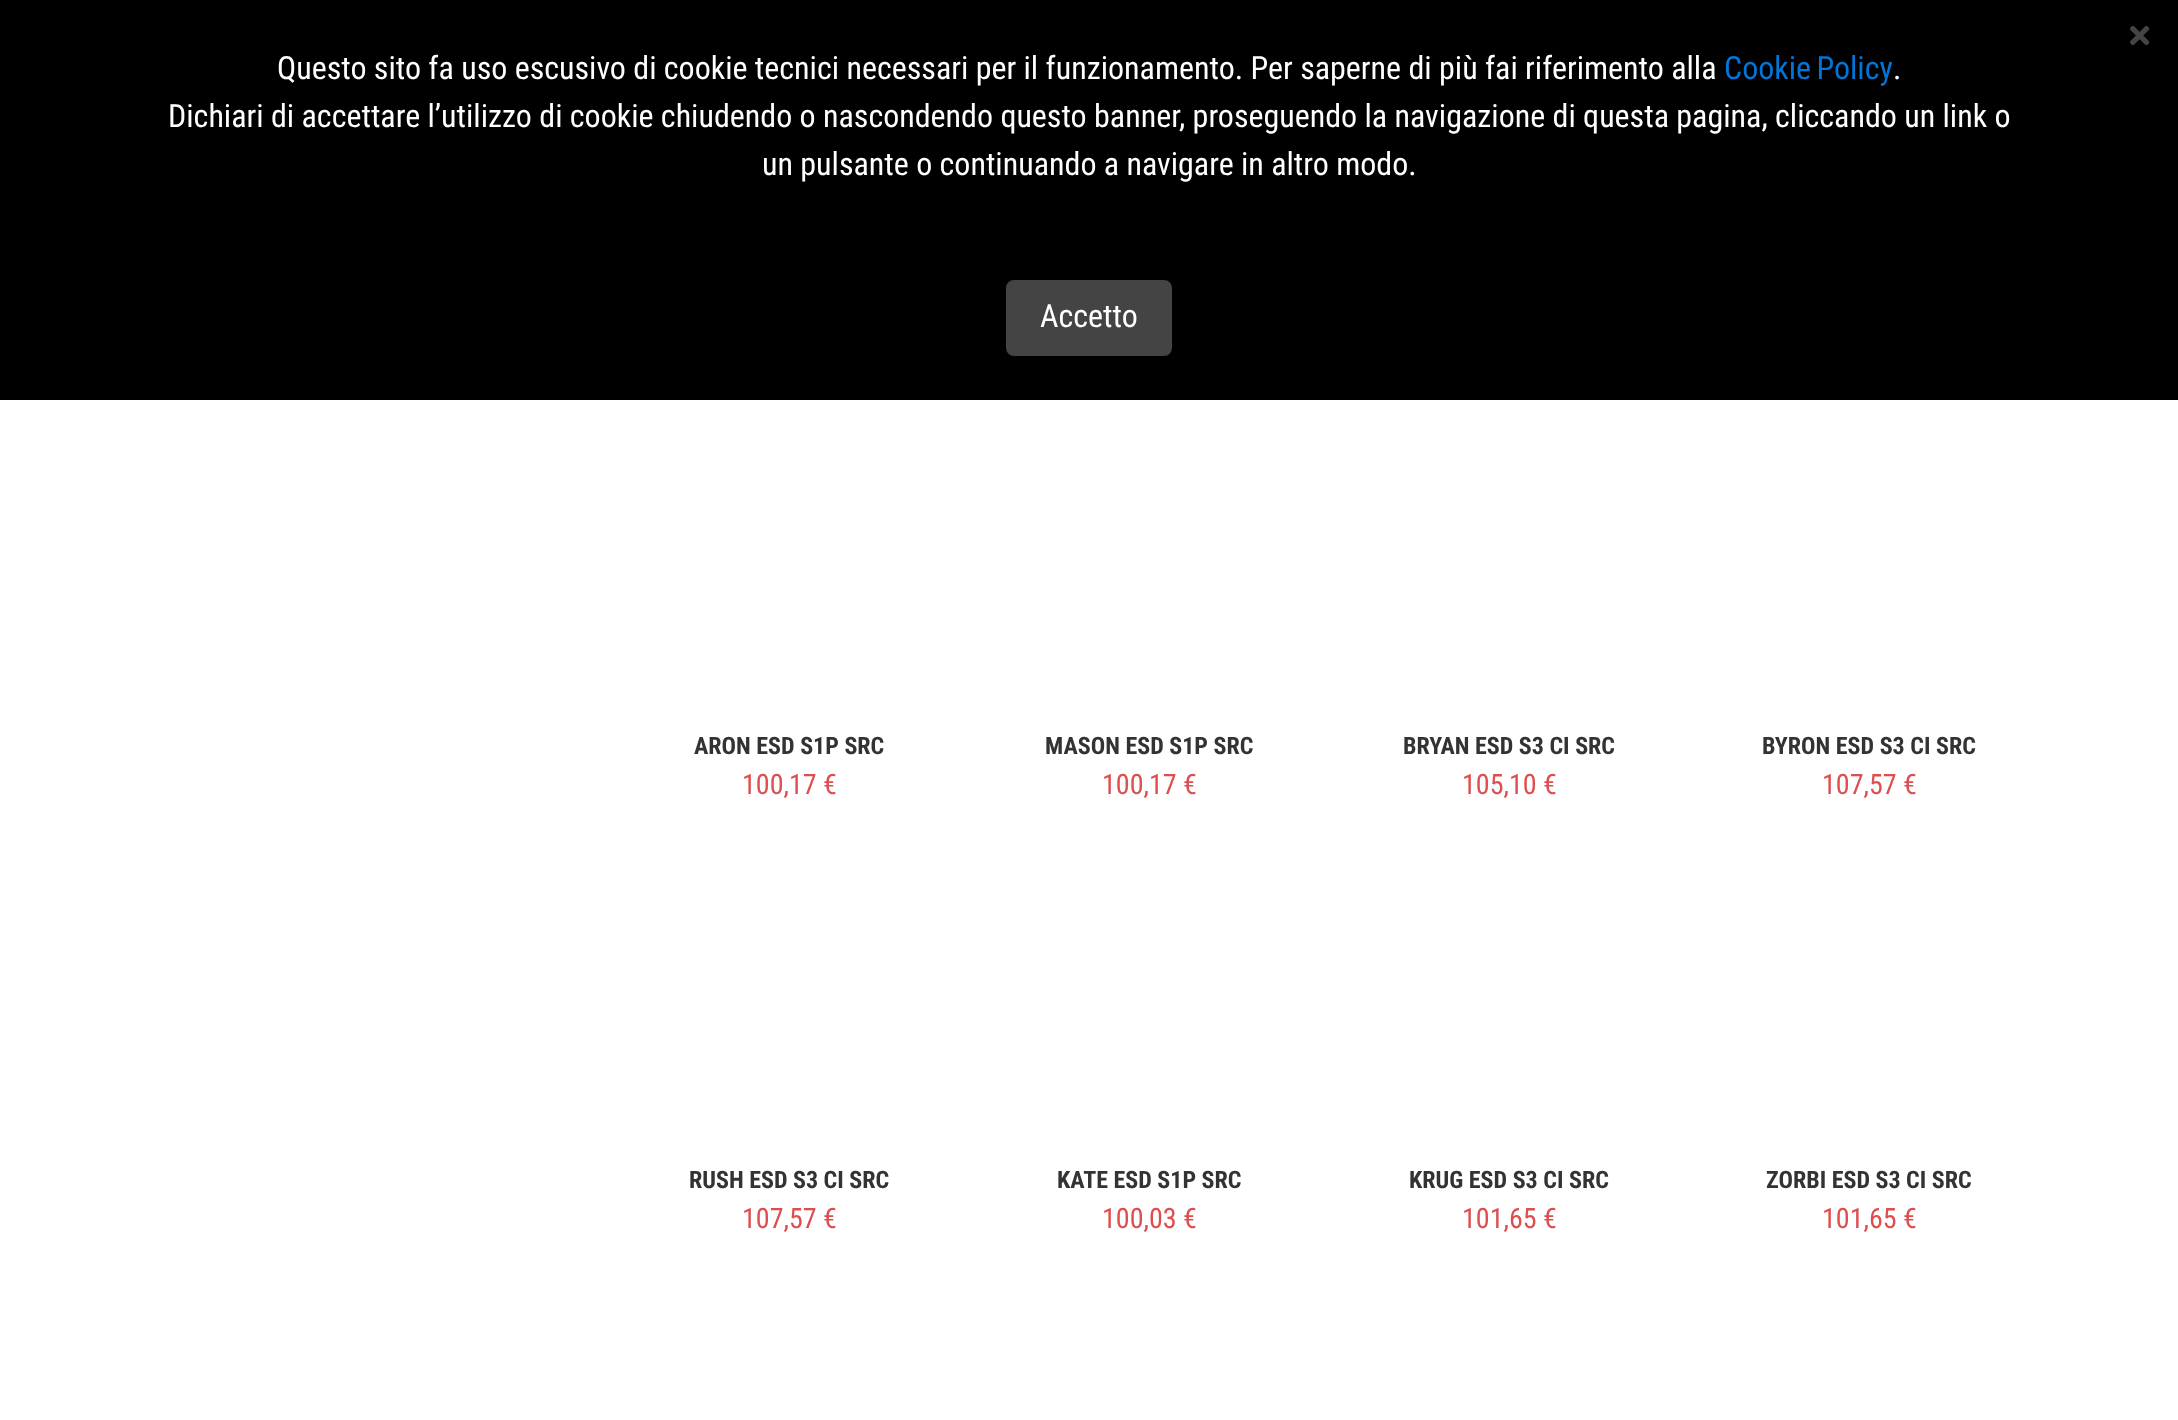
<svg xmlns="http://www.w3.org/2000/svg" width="2178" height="1420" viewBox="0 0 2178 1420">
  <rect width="100%" height="100%" fill="#fff"/>
  <path d="M0 0h2178v400H0z" fill="#000"/>
  <image x="2130" y="25" width="20" height="21" href="img/1.png"/>
  <rect x="1007" y="281" width="164" height="74" rx="7" fill="#444" stroke="#444" stroke-width="2"/>
  <text x="277" y="79" font-family="Roboto Condensed" font-size="32" fill="#fff">Questo sito fa uso escusivo di cookie tecnici necessari per il funzionamento. Per saperne di più fai riferimento alla</text>
  <text x="1724" y="79" word-spacing="-2" font-family="Roboto Condensed" font-size="32" fill="#0275d8">Cookie Policy</text>
  <g font-family="Roboto Condensed" font-size="32" fill="#fff">
    <text x="1893" y="79">.</text>
    <text x="168" y="127">Dichiari di accettare l’utilizzo di cookie chiudendo o nascondendo questo banner, proseguendo la navigazione di questa pagina, cliccando un link o</text>
    <text x="762" y="175">un pulsante o continuando a navigare in altro modo.</text>
    <text x="1040" y="327">Accetto</text>
  </g>
  <text x="694" y="754" font-family="Roboto Condensed" font-size="24" font-weight="bold" fill="#333">ARON ESD S1P SRC</text>
  <text x="742" y="794" font-family="Roboto Condensed" font-size="28" fill="#df4e4e">100,17 €</text>
  <text x="1045" y="754" font-family="Roboto Condensed" font-size="24" font-weight="bold" fill="#333">MASON ESD S1P SRC</text>
  <text x="1102" y="794" font-family="Roboto Condensed" font-size="28" fill="#df4e4e">100,17 €</text>
  <text x="1403" y="754" font-family="Roboto Condensed" font-size="24" font-weight="bold" fill="#333">BRYAN ESD S3 CI SRC</text>
  <text x="1462" y="794" font-family="Roboto Condensed" font-size="28" fill="#df4e4e">105,10 €</text>
  <text x="1762" y="754" font-family="Roboto Condensed" font-size="24" font-weight="bold" fill="#333">BYRON ESD S3 CI SRC</text>
  <text x="1822" y="794" font-family="Roboto Condensed" font-size="28" fill="#df4e4e">107,57 €</text>
  <text x="689" y="1188" font-family="Roboto Condensed" font-size="24" font-weight="bold" fill="#333">RUSH ESD S3 CI SRC</text>
  <text x="742" y="1228" font-family="Roboto Condensed" font-size="28" fill="#df4e4e">107,57 €</text>
  <text x="1057" y="1188" font-family="Roboto Condensed" font-size="24" font-weight="bold" fill="#333">KATE ESD S1P SRC</text>
  <text x="1102" y="1228" font-family="Roboto Condensed" font-size="28" fill="#df4e4e">100,03 €</text>
  <text x="1409" y="1188" font-family="Roboto Condensed" font-size="24" font-weight="bold" fill="#333">KRUG ESD S3 CI SRC</text>
  <text x="1462" y="1228" font-family="Roboto Condensed" font-size="28" fill="#df4e4e">101,65 €</text>
  <text x="1766" y="1188" font-family="Roboto Condensed" font-size="24" font-weight="bold" fill="#333">ZORBI ESD S3 CI SRC</text>
  <text x="1822" y="1228" font-family="Roboto Condensed" font-size="28" fill="#df4e4e">101,65 €</text>
</svg>
